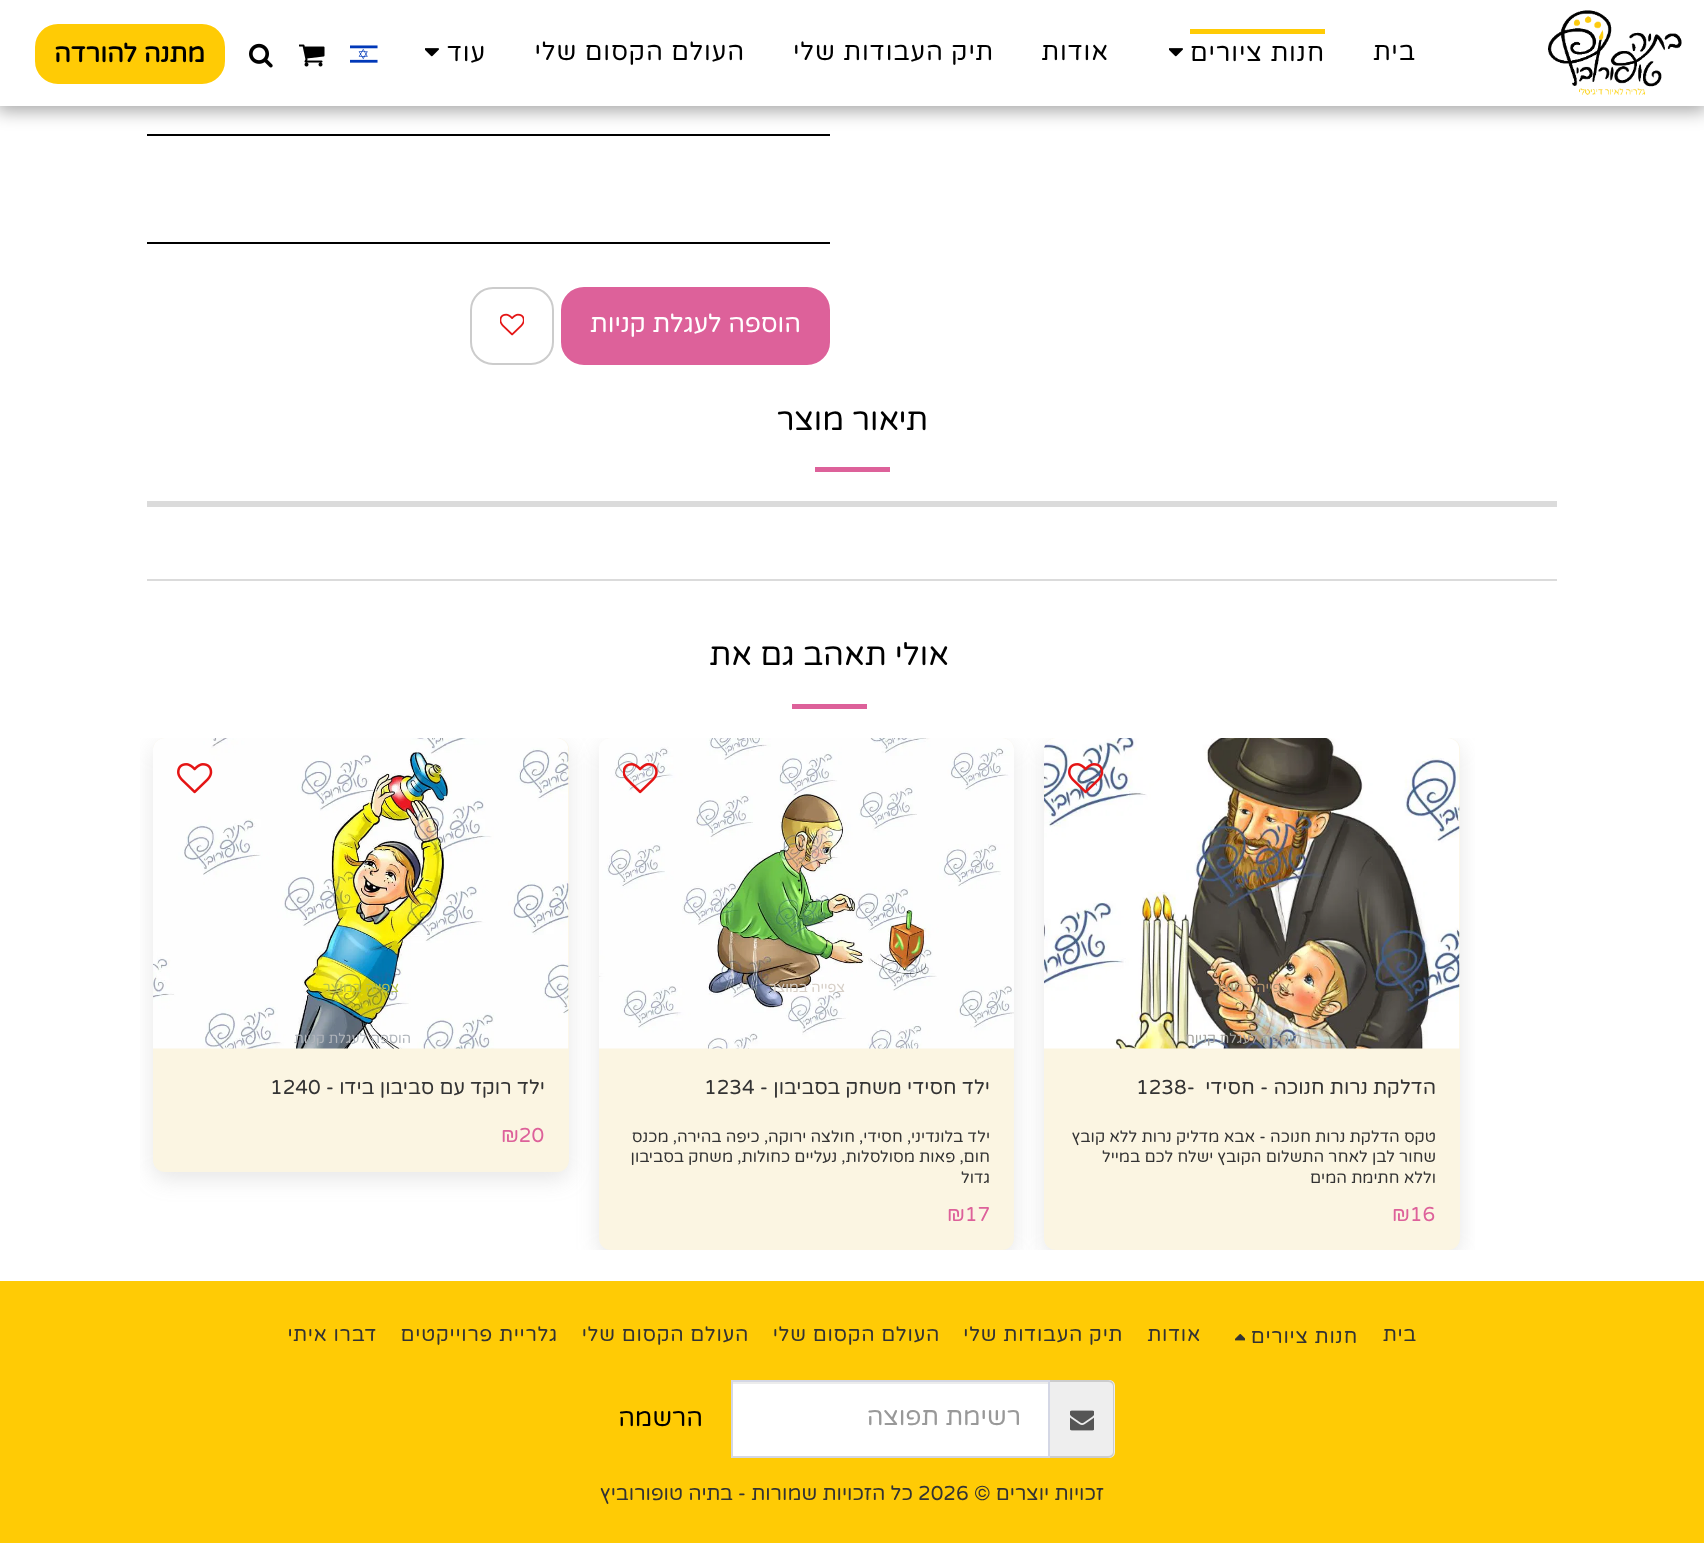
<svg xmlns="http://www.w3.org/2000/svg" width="1704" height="1543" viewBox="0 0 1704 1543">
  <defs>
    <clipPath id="clip1"><path d="M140 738h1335v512H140z"/></clipPath>
  </defs>
  <rect width="100%" height="100%" fill="#fff"/>
  <path d="M147 134h683v2H147z" fill="#000"/>
  <path d="M-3 0h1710v111H-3z" fill="#00000059" filter="blur(9px)"/>
  <path d="M0 0h1704v106H0z" fill="#fff"/>
  <image x="1548" y="10" width="134" height="85" href="img/1.png"/>
  <path d="M1190 29h135v5H1190z" fill="#ffcb05"/>
  <image x="1169" y="48" width="14" height="9" href="img/2.png"/>
  <image x="425" y="48" width="14" height="9" href="img/2.png"/>
  <image x="350" y="45" width="28" height="18" href="img/3.png"/>
  <image x="299" y="44" width="26" height="23" href="img/4.png"/>
  <image x="249" y="43" width="24" height="25" href="img/5.png"/>
  <rect x="36" y="25" width="188" height="58" rx="22" fill="#ffcb05" stroke="#ffcb05" stroke-width="2"/>
  <path d="M147 242h683v2H147z" fill="#000"/>
  <rect x="562" y="288" width="267" height="76" rx="22" fill="#dd619a" stroke="#dd619a" stroke-width="2"/>
  <rect x="471" y="288" width="82" height="76" rx="22" fill="none" stroke="#ccc" stroke-width="2"/>
  <image x="500" y="313" width="24" height="23" href="img/6.png"/>
  <path d="M815 467h75v5H815z" fill="#dd619a"/>
  <path d="M147 501h1410v6H147z" fill="#dbdbdb"/>
  <path d="M147 579h1410v2H147z" fill="#dbdbdb"/>
  <path d="M792 704h75v5H792z" fill="#dd619a"/>
  <path d="M0 1281h1704v262H0z" fill="#ffcb05"/>
  <g clip-path="url(#clip1)">
    <rect x="1044" y="746" width="416" height="511" rx="12" fill="#81818133" filter="blur(11px)"/>
  </g>
  <rect x="1044" y="738" width="416" height="512" rx="12" fill="#fbf5e2"/>
  <image x="1044" y="738" width="416" height="311" href="img/7.png"/>
  <image x="1068" y="763" width="36" height="31" href="img/8.png"/>
  <g clip-path="url(#clip1)">
    <rect x="599" y="746" width="415" height="511" rx="12" fill="#81818133" filter="blur(11px)"/>
  </g>
  <rect x="599" y="738" width="415" height="512" rx="12" fill="#fbf5e2"/>
  <image x="599" y="738" width="415" height="311" href="img/9.png"/>
  <image x="623" y="763" width="35" height="31" href="img/10.png"/>
  <g clip-path="url(#clip1)">
    <rect x="153" y="746" width="416" height="433" rx="12" fill="#81818133" filter="blur(11px)"/>
  </g>
  <rect x="153" y="738" width="416" height="434" rx="12" fill="#fbf5e2"/>
  <image x="153" y="738" width="416" height="311" href="img/11.png"/>
  <image x="177" y="763" width="36" height="31" href="img/12.png"/>
  <image x="1235" y="1334" width="10" height="7" href="img/13.png"/>
  <path d="M1050 1380H1109C1112.5 1380 1115 1382.5 1115 1386V1452C1115 1455.5 1112.5 1458 1109 1458H1050Z" fill="#eee"/>
  <path d="M1050 1380H1108C1112 1380 1114 1383 1114 1386V1452C1114 1455 1112 1458 1108 1458H1050ZM1050 1382H1108C1111 1382 1113 1384 1113 1386V1452C1113 1454 1111 1456 1108 1456H1050Z" fill="#ccc" fill-rule="evenodd"/>
  <image x="1070" y="1410" width="24" height="21" href="img/14.png"/>
  <path d="M733 1384h315v72H733z" fill="#fff"/>
  <path d="M732 1382h317v2H732z" fill="#ececec"/>
  <path d="M732 1381h317v76H732z" fill="none" stroke="#d4d7e5" stroke-width="2"/>
  <g font-family="Varela Round" font-size="25.5" letter-spacing="0.9" direction="rtl" fill="#000">
    <text x="1416" y="60">בית</text>
    <text x="1325" y="61">חנות ציורים</text>
    <text x="1109" y="60">אודות</text>
    <text x="994" y="60">תיק העבודות שלי</text>
    <text x="745" y="60">העולם הקסום שלי</text>
    <text x="486" y="61">עוד</text>
  </g>
  <text x="205" y="62" font-family="Varela Round" font-size="25.5" font-weight="bold" direction="rtl" fill="#000">מתנה להורדה</text>
  <text x="801" y="332" font-family="Varela Round" font-size="25.25" direction="rtl" fill="#fff">הוספה לעגלת קניות</text>
  <g font-family="Varela Round" font-size="31.5" direction="rtl" fill="#000">
    <text x="928" y="430">תיאור מוצר</text>
    <text x="949" y="665">אולי תאהב גם את</text>
  </g>
  <text x="1290" y="992" font-family="Varela Round" font-size="14" direction="rtl" fill="#b69572">צפייה במוצר</text>
  <text x="1302" y="1043" font-family="Varela Round" font-size="14" direction="rtl" fill="#a5a49f">הוספה לעגלת קניות</text>
  <text x="1436" y="1094" font-family="Varela Round" font-size="20.2" direction="rtl" fill="#333">הדלקת נרות חנוכה - חסידי</text>
  <text x="1136" y="1094" font-family="Varela Round" font-size="20.2" fill="#333">1238-</text>
  <g font-family="Varela Round" font-size="16.1" direction="rtl" fill="#333">
    <text x="1436" y="1142">טקס הדלקת נרות חנוכה - אבא מדליק נרות ללא קובץ</text>
    <text x="1436" y="1162">שחור לבן לאחר התשלום הקובץ ישלח לכם במייל</text>
    <text x="1436" y="1183">וללא חתימת המים</text>
  </g>
  <text x="1392" y="1221" font-family="Varela Round" font-size="20.2" fill="#dd619a">₪16</text>
  <text x="845" y="992" font-family="Varela Round" font-size="14" direction="rtl" fill="#d6cfc7">צפייה במוצר</text>
  <text x="990" y="1094" font-family="Varela Round" font-size="20.2" direction="rtl" fill="#333">ילד חסידי משחק בסביבון -</text>
  <text x="704" y="1094" font-family="Varela Round" font-size="20.2" fill="#333">1234</text>
  <g font-family="Varela Round" font-size="16.1" direction="rtl" fill="#333">
    <text x="990" y="1142">ילד בלונדיני, חסידי, חולצה ירוקה, כיפה בהירה, מכנס</text>
    <text x="990" y="1162">חום, פאות מסולסלות, נעליים כחולות, משחק בסביבון</text>
    <text x="990" y="1183">גדול</text>
  </g>
  <text x="947" y="1221" font-family="Varela Round" font-size="20.2" fill="#dd619a">₪17</text>
  <text x="399" y="992" font-family="Varela Round" font-size="14" direction="rtl" fill="#b8c44e">צפייה במוצר</text>
  <text x="411" y="1043" font-family="Varela Round" font-size="14" direction="rtl" fill="#b0b5bb">הוספה לעגלת קניות</text>
  <text x="545" y="1094" font-family="Varela Round" font-size="20.2" direction="rtl" fill="#333">ילד רוקד עם סביבון בידו -</text>
  <text x="270" y="1094" font-family="Varela Round" font-size="20.2" fill="#333">1240</text>
  <text x="501" y="1142" font-family="Varela Round" font-size="20.2" fill="#dd619a">₪20</text>
  <g font-family="Varela Round" font-size="20.2" letter-spacing="0.75" direction="rtl" fill="#333">
    <text x="1417" y="1341">בית</text>
    <text x="1358" y="1343">חנות ציורים</text>
    <text x="1201" y="1341">אודות</text>
    <text x="1123" y="1341">תיק העבודות שלי</text>
    <text x="940" y="1341">העולם הקסום שלי</text>
    <text x="749" y="1341">העולם הקסום שלי</text>
    <text x="558" y="1341">גלריית פרוייקטים</text>
    <text x="377" y="1341">דברו איתי</text>
  </g>
  <text x="1021" y="1425" font-family="Varela Round" font-size="25.25" direction="rtl" fill="#999">רשימת תפוצה</text>
  <text x="703" y="1426" font-family="Varela Round" font-size="25.25" direction="rtl" fill="#000">הרשמה</text>
  <text x="1104" y="1500" font-family="Varela Round" font-size="20.2" direction="rtl" fill="#333">זכויות יוצרים ©</text>
  <text x="918" y="1500" font-family="Varela Round" font-size="20.2" fill="#333">2026</text>
  <g font-family="Varela Round" font-size="20.2" direction="rtl" fill="#333">
    <text x="913" y="1500">כל הזכויות שמורות -</text>
    <text x="733" y="1500">בתיה טופורוביץ</text>
  </g>
</svg>
